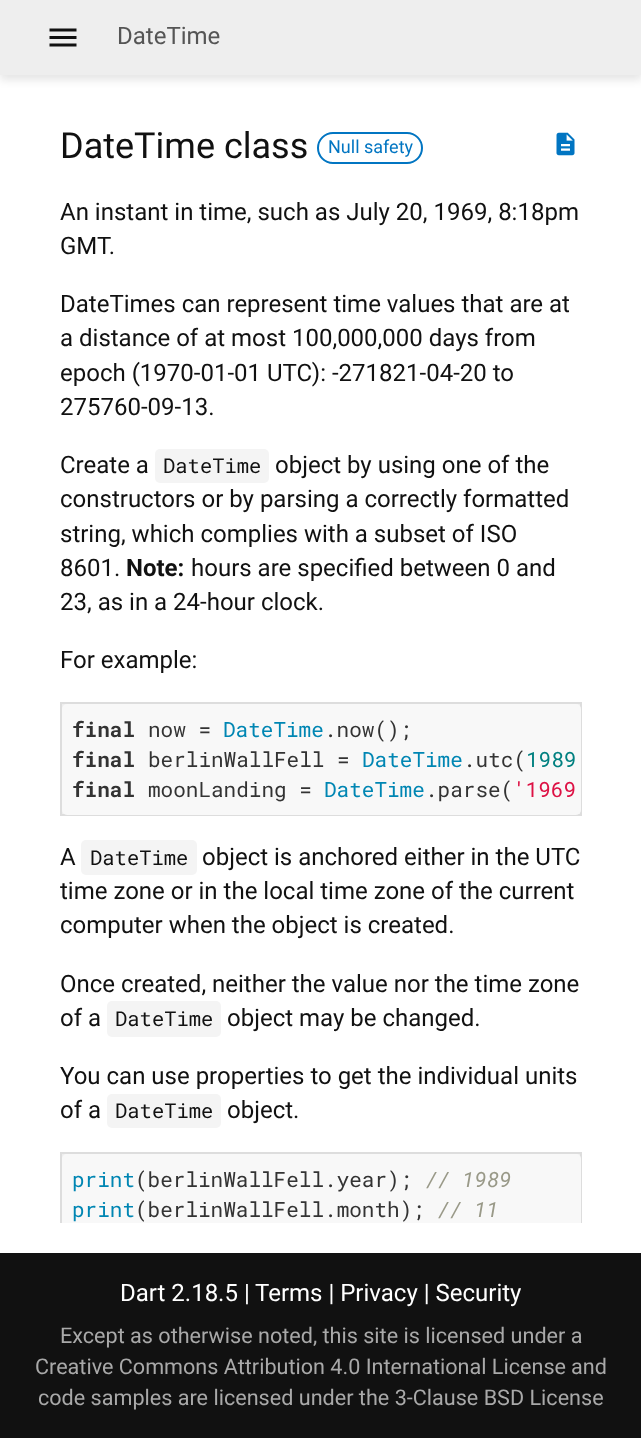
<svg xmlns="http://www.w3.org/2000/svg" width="641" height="1438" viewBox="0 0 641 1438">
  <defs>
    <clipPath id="clip1"><path d="M30 105h582v1118H30z"/></clipPath>
  </defs>
  <rect width="100%" height="100%" fill="#fff"/>
  <path d="M0 5h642v75H0z" fill="#0000001a" filter="blur(4px)"/>
  <path d="M0 0h641v75H0z" fill="#eee"/>
  <image x="49" y="28" width="28" height="19" href="img/1.png"/>
  <rect x="318" y="133" width="104" height="30" rx="15" fill="none" stroke="#0175c2" stroke-width="2"/>
  <image x="556" y="132" width="19" height="24" href="img/2.png"/>
  <rect x="155" y="449" width="114" height="34" rx="5" fill="#f4f4f4"/>
  <path d="M61 703h520v112H61z" fill="#eee" stroke="#ddd" stroke-width="2"/>
  <rect x="62" y="704" width="519" height="111" rx="5" fill="#f8f8f8"/>
  <rect x="81" y="840" width="116" height="35" rx="5" fill="#f4f4f4"/>
  <rect x="107" y="1001" width="114" height="36" rx="5" fill="#f4f4f4"/>
  <rect x="107" y="1094" width="114" height="34" rx="5" fill="#f4f4f4"/>
  <path d="M62 1154h518v5H62z" fill="#eee"/>
  <path d="M0 1253h641v185H0z" fill="#111"/>
  <g clip-path="url(#clip1)">
    <path d="M61 1153h520v172H61z" fill="none" stroke="#ddd" stroke-width="2"/>
  </g>
  <path d="M67 1154H576C579 1154 581 1156 581 1159V1223H62V1159C62 1156 64 1154 67 1154Z" fill="#f8f8f8"/>
  <text x="117" y="44" font-family="Roboto" font-size="24" fill="#555">DateTime</text>
  <text x="60" y="158" font-family="Roboto" font-size="36" fill="#111">DateTime class</text>
  <text x="328" y="153" font-family="Roboto" font-size="18" fill="#0175c2">Null safety</text>
  <g font-family="Roboto" font-size="24" fill="#111">
    <text x="60" y="220">An instant in time, such as July 20, 1969, 8:18pm</text>
    <text x="60" y="254">GMT.</text>
    <text x="60" y="312">DateTimes can represent time values that are at</text>
    <text x="60" y="346">a distance of at most 100,000,000 days from</text>
    <text x="60" y="381">epoch (1970-01-01 UTC): -271821-04-20 to</text>
    <text x="60" y="415">275760-09-13.</text>
    <text x="60" y="473">Create a</text>
  </g>
  <text x="163" y="473" font-family="Roboto Mono" font-size="20.5" fill="#111">DateTime</text>
  <g font-family="Roboto" font-size="24" fill="#111">
    <text x="275" y="473">object by using one of the</text>
    <text x="60" y="507">constructors or by parsing a correctly formatted</text>
    <text x="60" y="542">string, which complies with a subset of ISO</text>
    <text x="60" y="576">8601.</text>
  </g>
  <text x="126" y="576" font-family="Roboto" font-size="24" font-weight="bold" fill="#111">Note:</text>
  <g font-family="Roboto" font-size="24" fill="#111">
    <text x="191" y="576">hours are specified between 0 and</text>
    <text x="60" y="610">23, as in a 24-hour clock.</text>
    <text x="60" y="668">For example:</text>
  </g>
  <text x="72" y="737" font-family="Roboto Mono" font-size="21" font-weight="bold" fill="#333">final</text>
  <text x="148" y="737" font-family="Roboto Mono" font-size="21" fill="#333">now =</text>
  <text x="223" y="737" font-family="Roboto Mono" font-size="21" fill="#0086b3">DateTime</text>
  <text x="324" y="737" font-family="Roboto Mono" font-size="21" fill="#333">.now();</text>
  <text x="72" y="767" font-family="Roboto Mono" font-size="21" font-weight="bold" fill="#333">final</text>
  <text x="148" y="767" font-family="Roboto Mono" font-size="21" fill="#333">berlinWallFell =</text>
  <text x="362" y="767" font-family="Roboto Mono" font-size="21" fill="#0086b3">DateTime</text>
  <text x="463" y="767" font-family="Roboto Mono" font-size="21" fill="#333">.utc(</text>
  <text x="526" y="767" font-family="Roboto Mono" font-size="21" fill="#008080">1989</text>
  <text x="72" y="797" font-family="Roboto Mono" font-size="21" font-weight="bold" fill="#333">final</text>
  <text x="148" y="797" font-family="Roboto Mono" font-size="21" fill="#333">moonLanding =</text>
  <text x="324" y="797" font-family="Roboto Mono" font-size="21" fill="#0086b3">DateTime</text>
  <text x="425" y="797" font-family="Roboto Mono" font-size="21" fill="#333">.parse(</text>
  <text x="513" y="797" font-family="Roboto Mono" font-size="21" fill="#d14">'1969</text>
  <text x="60" y="865" font-family="Roboto" font-size="24" fill="#111">A</text>
  <text x="90" y="865" font-family="Roboto Mono" font-size="20.5" fill="#111">DateTime</text>
  <g font-family="Roboto" font-size="24" fill="#111">
    <text x="202" y="865">object is anchored either in the UTC</text>
    <text x="60" y="899">time zone or in the local time zone of the current</text>
    <text x="60" y="933">computer when the object is created.</text>
    <text x="60" y="992">Once created, neither the value nor the time zone</text>
    <text x="60" y="1026">of a</text>
  </g>
  <text x="115" y="1026" font-family="Roboto Mono" font-size="20.5" fill="#111">DateTime</text>
  <g font-family="Roboto" font-size="24" fill="#111">
    <text x="227" y="1026">object may be changed.</text>
    <text x="60" y="1084">You can use properties to get the individual units</text>
    <text x="60" y="1118">of a</text>
  </g>
  <text x="115" y="1118" font-family="Roboto Mono" font-size="20.5" fill="#111">DateTime</text>
  <text x="227" y="1118" font-family="Roboto" font-size="24" fill="#111">object.</text>
  <text x="72" y="1187" font-family="Roboto Mono" font-size="21" fill="#0086b3">print</text>
  <text x="135" y="1187" font-family="Roboto Mono" font-size="21" fill="#333">(berlinWallFell.year);</text>
  <text x="425" y="1187" font-family="Roboto Mono" font-size="21" font-style="italic" fill="#998">// 1989</text>
  <text x="72" y="1217" font-family="Roboto Mono" font-size="21" fill="#0086b3">print</text>
  <text x="135" y="1217" font-family="Roboto Mono" font-size="21" fill="#333">(berlinWallFell.month);</text>
  <text x="437" y="1217" font-family="Roboto Mono" font-size="21" font-style="italic" fill="#998">// 11</text>
  <text x="255" y="1301" font-family="Roboto" font-size="24" fill="#fff">Terms | Privacy | Security</text>
  <g font-family="Roboto" font-size="21.6" fill="#a9a9a9">
    <text x="60" y="1343">Except as otherwise noted, this site is licensed under a</text>
    <text x="35" y="1374">Creative Commons Attribution 4.0 International License</text>
    <text x="571" y="1374">and</text>
    <text x="38" y="1405">code samples are licensed under the 3-Clause BSD License</text>
  </g>
  <text x="120" y="1301" font-family="Roboto" font-size="24" fill="#fff">Dart 2.18.5 |</text>
</svg>
